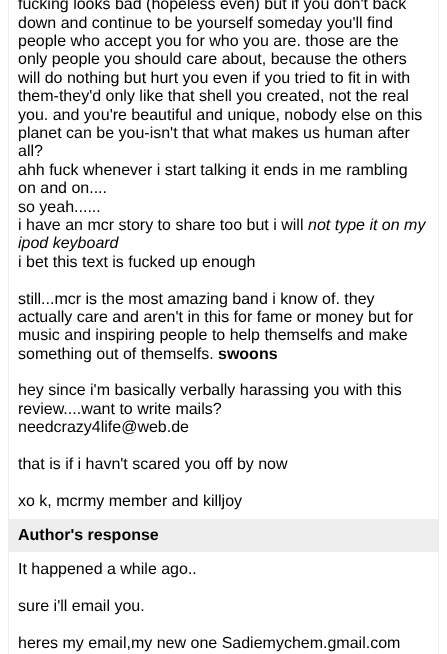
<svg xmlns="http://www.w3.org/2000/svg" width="447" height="654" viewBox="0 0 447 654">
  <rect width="100%" height="100%" fill="#fff"/>
  <path d="M8.5 -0.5h430v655H8.5z" fill="none" stroke="#eee"/>
  <path d="M9 519h429v33H9z" fill="#eee"/>
  <g font-family="Liberation Sans" font-size="16" fill="#000">
    <text x="18" y="9">fucking looks bad (hopeless even) but if you don't back</text>
    <text x="18" y="28">down and continue to be yourself someday you'll find</text>
    <text x="18" y="46">people who accept you for who you are. those are the</text>
    <text x="18" y="64">only people you should care about, because the others</text>
    <text x="18" y="83">will do nothing but hurt you even if you tried to fit in with</text>
    <text x="18" y="101">them-they'd only like that shell you created, not the real</text>
    <text x="18" y="120">you. and you're beautiful and unique, nobody else on this</text>
    <text x="18" y="138">planet can be you-isn't that what makes us human after</text>
    <text x="18" y="156">all?</text>
    <text x="18" y="175">ahh fuck whenever i start talking it ends in me rambling</text>
    <text x="18" y="193">on and on....</text>
    <text x="18" y="212">so yeah......</text>
    <text x="18" y="230">i have an mcr story to share too but i will</text>
  </g>
  <g font-family="Liberation Sans" font-size="16" font-style="italic" fill="#000">
    <text x="308" y="230">not type it on my</text>
    <text x="18" y="248">ipod keyboard</text>
  </g>
  <g font-family="Liberation Sans" font-size="16" fill="#000">
    <text x="18" y="267">i bet this text is fucked up enough</text>
    <text x="18" y="304">still...mcr is the most amazing band i know of. they</text>
    <text x="18" y="322">actually care and aren't in this for fame or money but for</text>
    <text x="18" y="340">music and inspiring people to help themselfs and make</text>
    <text x="18" y="359">something out of themselfs.</text>
  </g>
  <text x="218" y="359" font-family="Liberation Sans" font-size="16" font-weight="bold" fill="#000">swoons</text>
  <g font-family="Liberation Sans" font-size="16" fill="#000">
    <text x="18" y="395">hey since i'm basically verbally harassing you with this</text>
    <text x="18" y="414">review....want to write mails?</text>
    <text x="18" y="432">needcrazy4life@web.de</text>
    <text x="18" y="469">that is if i havn't scared you off by now</text>
    <text x="18" y="506">xo k, mcrmy member and killjoy</text>
  </g>
  <text x="18" y="540" font-family="Liberation Sans" font-size="16" font-weight="bold" fill="#000">Author's response</text>
  <g font-family="Liberation Sans" font-size="16" fill="#000">
    <text x="18" y="574">It happened a while ago..</text>
    <text x="18" y="611">sure i'll email you.</text>
    <text x="18" y="648">heres my email,my new one Sadiemychem.gmail.com</text>
  </g>
</svg>
